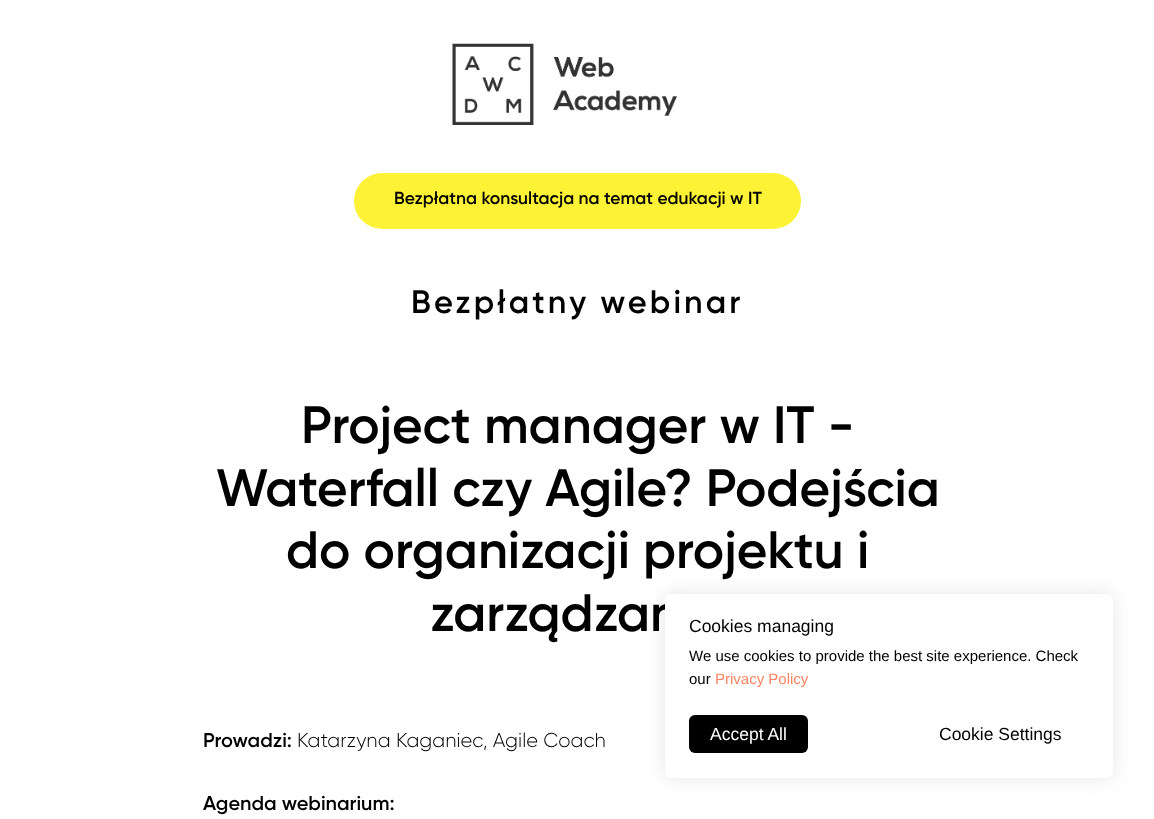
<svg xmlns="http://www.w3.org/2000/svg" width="1154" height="819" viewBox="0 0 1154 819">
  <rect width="100%" height="100%" fill="#fff"/>
  <image x="452" y="43" width="225" height="82" href="img/1.png"/>
  <rect x="354" y="173" width="447" height="56" rx="28" fill="#fdf235"/>
  <rect x="665" y="594" width="448" height="184" rx="6" fill="#0000001a" filter="blur(9.5px)"/>
  <text x="394" y="204" font-family="Gilroy" font-size="17.5" font-weight="600" fill="#000">Bezpłatna konsultacja na temat edukacji w IT</text>
  <text x="411" y="313" font-family="Gilroy" font-size="32.5" font-weight="600" letter-spacing="3.1" fill="#000">Bezpłatny webinar</text>
  <g font-family="Gilroy" font-size="52.5" font-weight="600" fill="#000">
    <text x="301" y="443">Project manager w IT -</text>
    <text x="216" y="506">Waterfall czy Agile? Podejścia</text>
    <text x="286" y="568">do organizacji projektu i</text>
    <text x="430" y="631">zarządzan</text>
  </g>
  <rect x="665" y="594" width="448" height="184" rx="6" fill="#fff"/>
  <text x="689" y="632" font-family="Liberation Sans" font-size="17.5" fill="#000">Cookies managing</text>
  <g font-family="Liberation Sans" font-size="15" fill="#000">
    <text x="689" y="661">We use cookies to provide the best site experience. Check</text>
    <text x="689" y="684">our</text>
  </g>
  <text x="715" y="684" font-family="Liberation Sans" font-size="15" fill="#ff8562">Privacy Policy</text>
  <rect x="689" y="715" width="119" height="38" rx="6" fill="#000"/>
  <text x="710" y="740" font-family="Liberation Sans" font-size="17.5" fill="#fff">Accept All</text>
  <text x="939" y="740" font-family="Liberation Sans" font-size="17.5" fill="#000">Cookie Settings</text>
  <text x="203" y="747" font-family="Gilroy" font-size="20" font-weight="600" fill="#000">Prowadzi:</text>
  <text x="297" y="747" font-family="Gilroy" font-size="20" font-weight="300" fill="#000">Katarzyna Kaganiec, Agile Coach</text>
  <text x="203" y="810" font-family="Gilroy" font-size="20" font-weight="600" fill="#000">Agenda webinarium:</text>
</svg>
